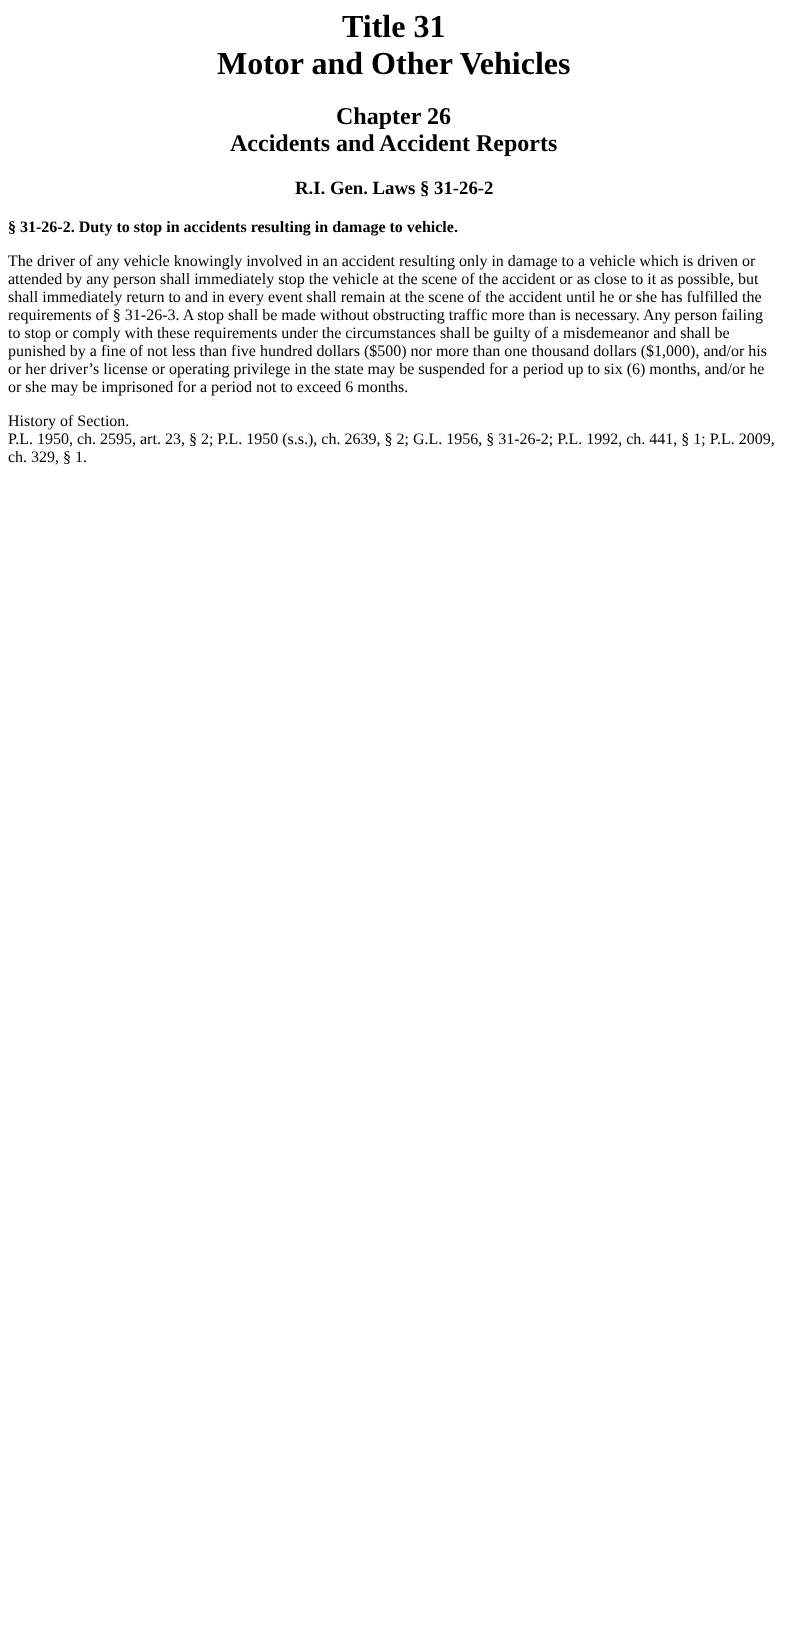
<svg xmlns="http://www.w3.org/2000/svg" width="787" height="1645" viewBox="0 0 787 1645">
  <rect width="100%" height="100%" fill="#fff"/>
  <g font-family="Liberation Serif" font-size="32" font-weight="bold" fill="#000">
    <text x="342" y="37">Title 31</text>
    <text x="217" y="74">Motor and Other Vehicles</text>
  </g>
  <g font-family="Liberation Serif" font-size="24" font-weight="bold" fill="#000">
    <text x="336" y="124">Chapter 26</text>
    <text x="230" y="151">Accidents and Accident Reports</text>
  </g>
  <text x="295" y="194" font-family="Liberation Serif" font-size="18.75" font-weight="bold" fill="#000">R.I. Gen. Laws § 31-26-2</text>
  <text x="8" y="232" font-family="Liberation Serif" font-size="16" font-weight="bold" fill="#000">§ 31-26-2. Duty to stop in accidents resulting in damage to vehicle.</text>
  <g font-family="Liberation Serif" font-size="16" fill="#000">
    <text x="8" y="266">The driver of any vehicle knowingly involved in an accident resulting only in damage to a vehicle which is driven or</text>
    <text x="8" y="284">attended by any person shall immediately stop the vehicle at the scene of the accident or as close to it as possible, but</text>
    <text x="8" y="302">shall immediately return to and in every event shall remain at the scene of the accident until he or she has fulfilled the</text>
    <text x="8" y="320">requirements of § 31-26-3. A stop shall be made without obstructing traffic more than is necessary. Any person failing</text>
    <text x="8" y="338">to stop or comply with these requirements under the circumstances shall be guilty of a misdemeanor and shall be</text>
    <text x="8" y="356">punished by a fine of not less than five hundred dollars ($500) nor more than one thousand dollars ($1,000), and/or his</text>
    <text x="8" y="374">or her driver’s license or operating privilege in the state may be suspended for a period up to six (6) months, and/or he</text>
    <text x="8" y="392">or she may be imprisoned for a period not to exceed 6 months.</text>
    <text x="8" y="426">History of Section.</text>
    <text x="8" y="444">P.L. 1950, ch. 2595, art. 23, § 2; P.L. 1950 (s.s.), ch. 2639, § 2; G.L. 1956, § 31-26-2; P.L. 1992, ch. 441, § 1; P.L. 2009,</text>
    <text x="8" y="462">ch. 329, § 1.</text>
  </g>
</svg>
